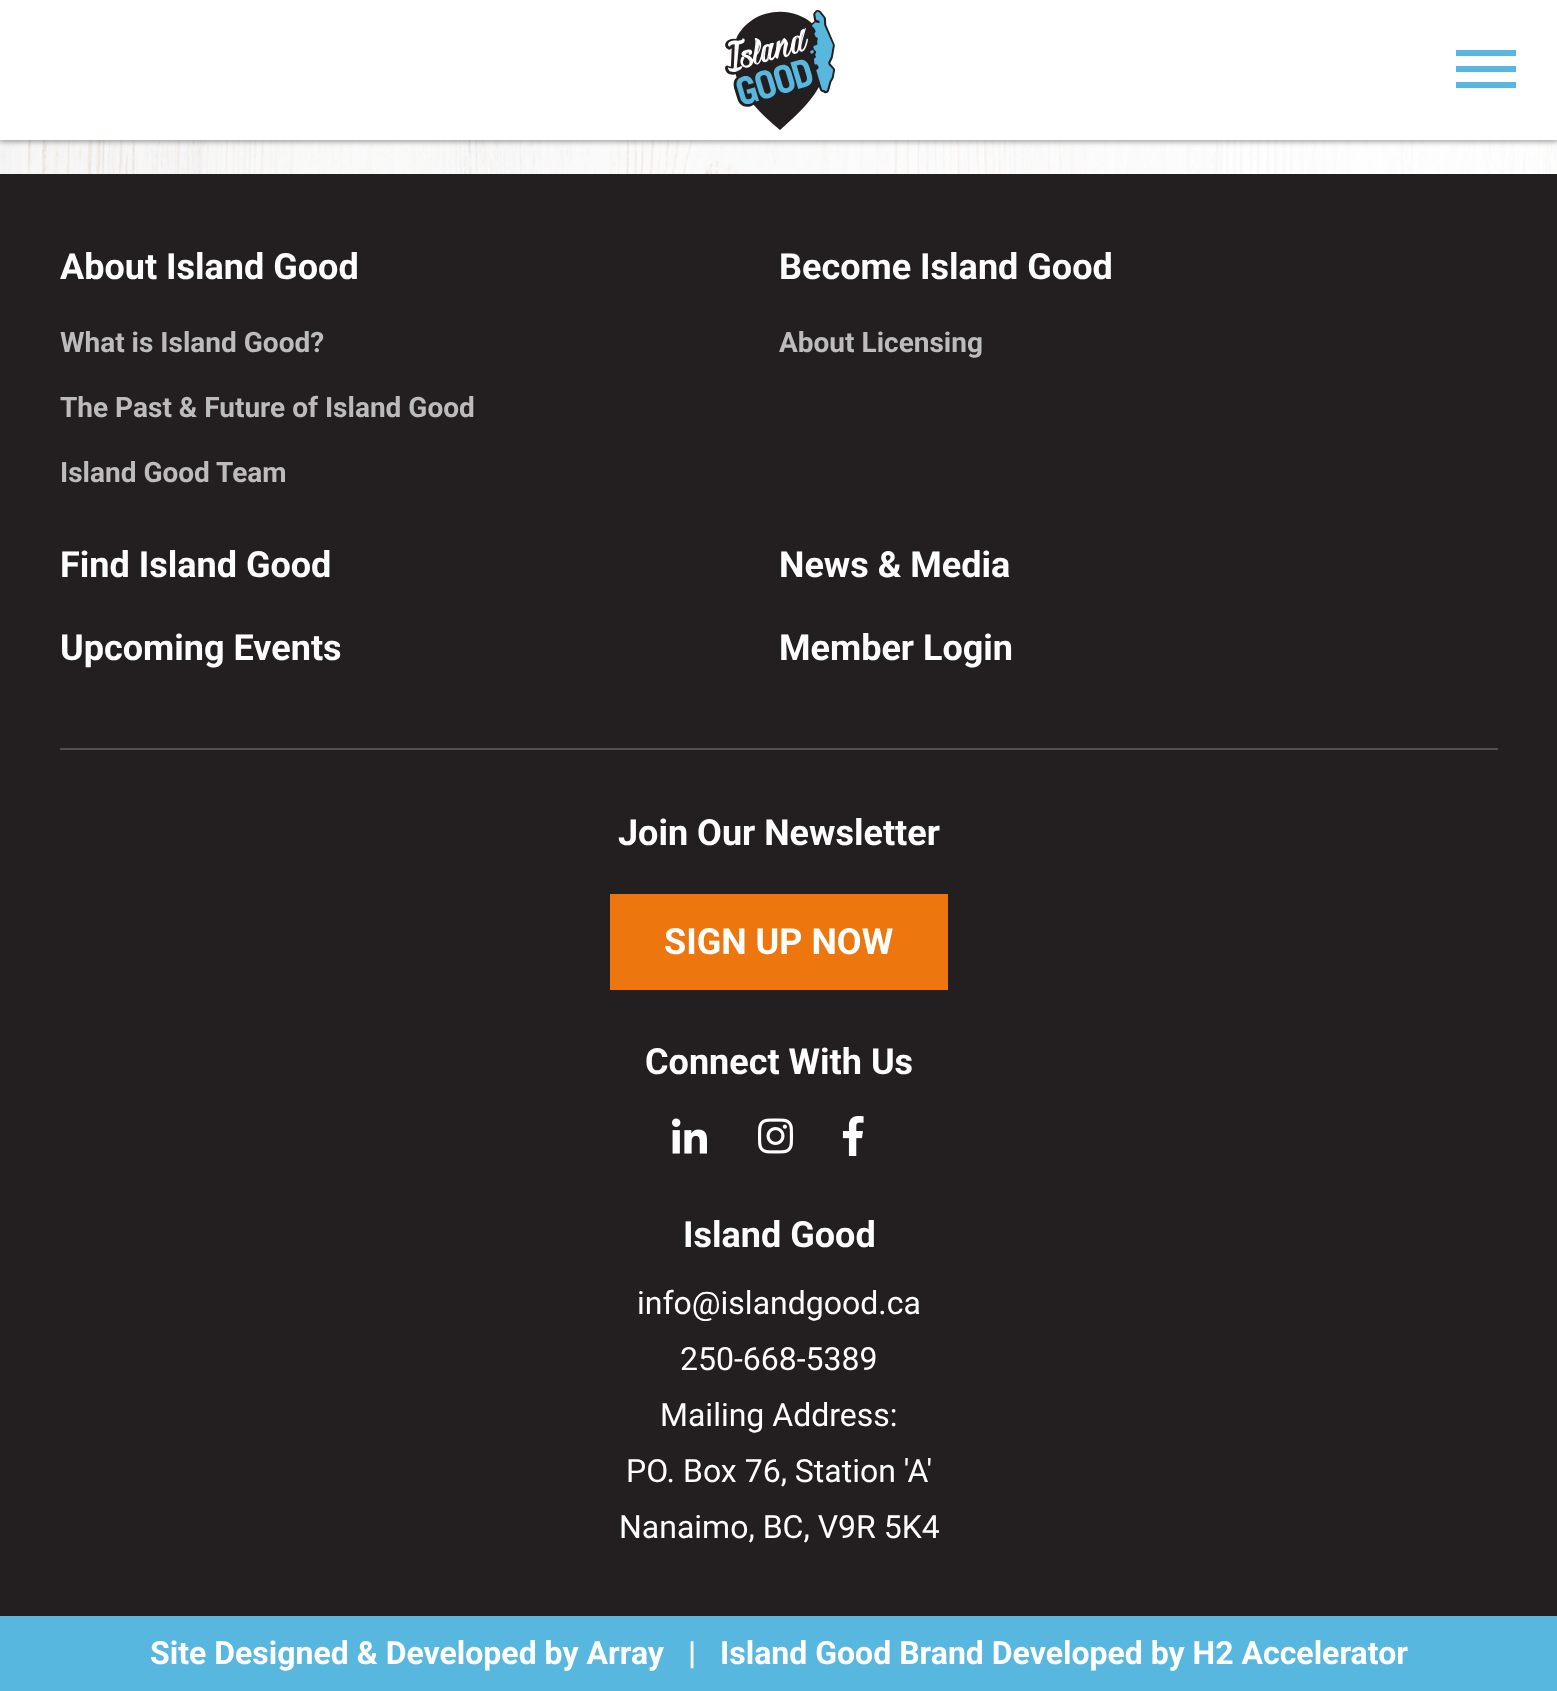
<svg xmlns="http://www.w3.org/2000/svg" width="1557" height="1691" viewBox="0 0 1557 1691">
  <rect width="100%" height="100%" fill="#fff"/>
  <image x="0" y="140" width="1557" height="34" href="img/1.png"/>
  <path d="M0 2h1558v140H0z" fill="#0000003d" filter="blur(2px)"/>
  <path d="M0 2h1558v140H0z" fill="#0000001f" filter="blur(3px)"/>
  <path d="M0 0h1557v140H0z" fill="#fff"/>
  <image x="725" y="10" width="110" height="120" href="img/2.png"/>
  <path d="M1456 50h60v6H1456z" fill="#57b7df"/>
  <path d="M1456 66h60v6H1456z" fill="#57b7df"/>
  <path d="M1456 82h60v6H1456z" fill="#57b7df"/>
  <path d="M0 174h1557v1442H0z" fill="#231f20"/>
  <path d="M60 748h1438v2H60z" fill="#50504f"/>
  <path d="M610 894h338v96H610z" fill="#ed770e"/>
  <image x="672" y="1118" width="35" height="36" href="img/3.png"/>
  <image x="758" y="1118" width="35" height="36" href="img/4.png"/>
  <image x="842" y="1116" width="22" height="40" href="img/5.png"/>
  <path d="M0 1616h1557v75H0z" fill="#57b7df"/>
  <text x="60" y="279" font-family="Roboto" font-size="36" font-weight="bold" fill="#fff">About Island Good</text>
  <g font-family="Roboto" font-size="28" font-weight="bold" fill="#bdbcbc">
    <text x="60" y="352">What is Island Good?</text>
    <text x="60" y="417">The Past &amp; Future of Island Good</text>
    <text x="60" y="482">Island Good Team</text>
  </g>
  <text x="779" y="279" font-family="Roboto" font-size="36" font-weight="bold" fill="#fff">Become Island Good</text>
  <text x="779" y="352" font-family="Roboto" font-size="28" font-weight="bold" fill="#bdbcbc">About Licensing</text>
  <g font-family="Roboto" font-size="36" font-weight="bold" fill="#fff">
    <text x="60" y="577">Find Island Good</text>
    <text x="779" y="577">News &amp; Media</text>
    <text x="60" y="660">Upcoming Events</text>
    <text x="779" y="660">Member Login</text>
    <text x="618" y="845">Join Our Newsletter</text>
    <text x="664" y="954">SIGN UP NOW</text>
    <text x="645" y="1074">Connect With Us</text>
    <text x="683" y="1247">Island Good</text>
  </g>
  <g font-family="Roboto" font-size="32" fill="#fff">
    <text x="637" y="1314">info@islandgood.ca</text>
    <text x="680" y="1370">250-668-5389</text>
    <text x="660" y="1426">Mailing Address:</text>
    <text x="626" y="1482">PO. Box 76, Station 'A'</text>
    <text x="619" y="1538">Nanaimo, BC, V9R 5K4</text>
  </g>
  <g font-family="Roboto" font-size="32" font-weight="bold" fill="#fff">
    <text x="150" y="1664">Site Designed &amp; Developed by Array</text>
    <text x="688" y="1664" xml:space="preserve">|   Island Good Brand Developed by H2 Accelerator</text>
  </g>
</svg>
